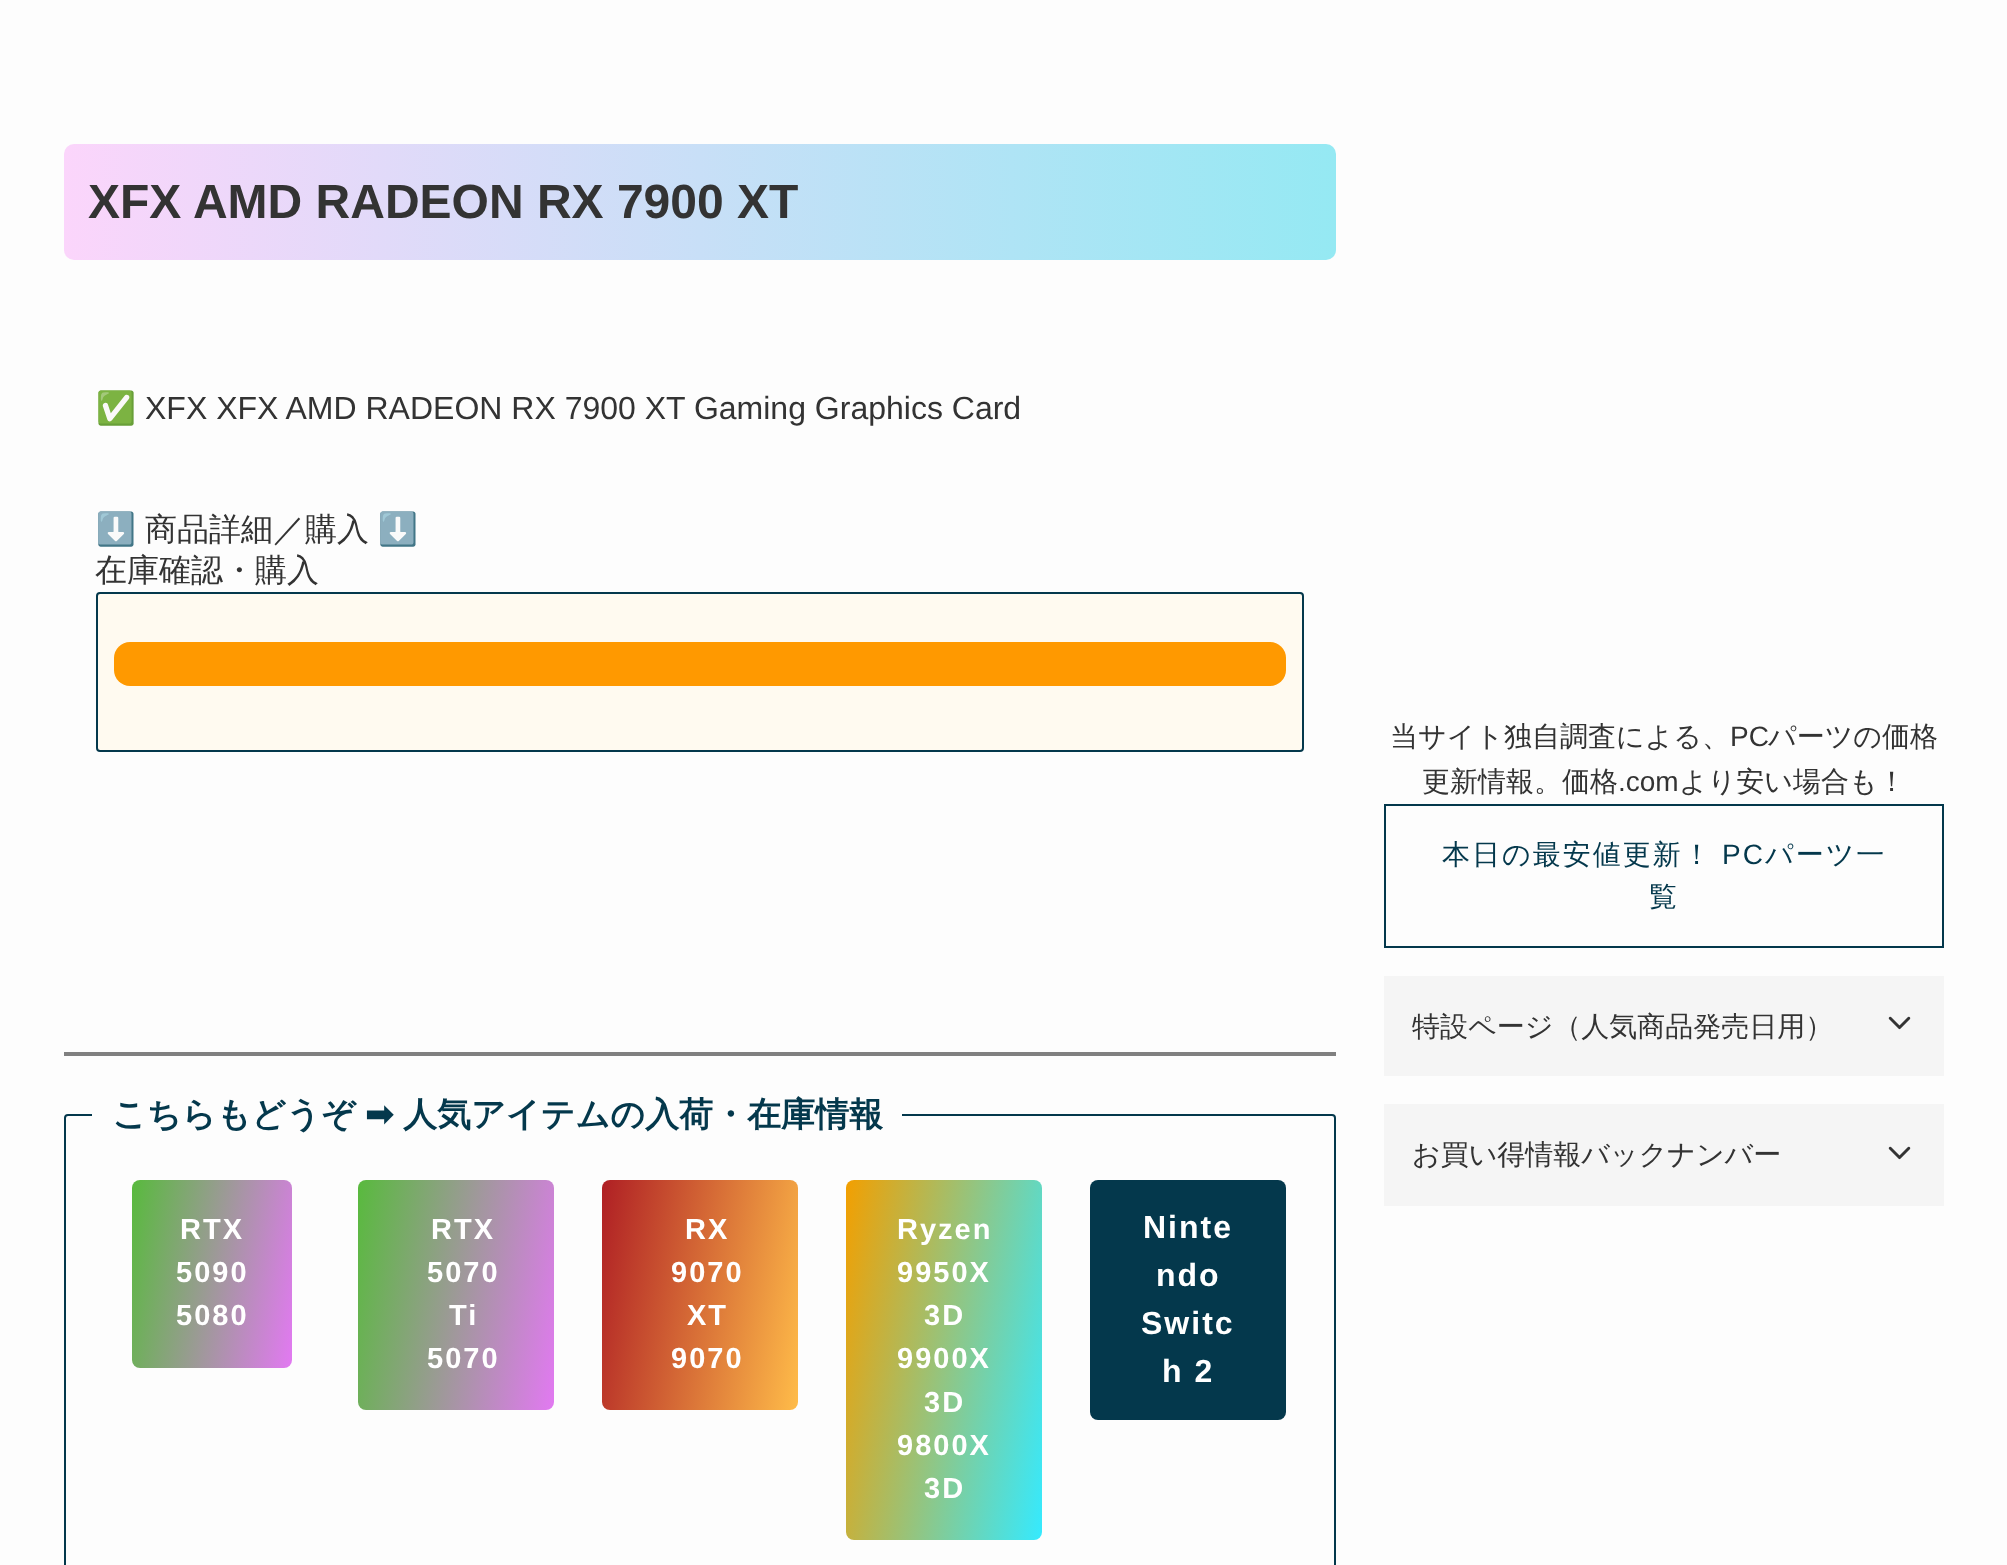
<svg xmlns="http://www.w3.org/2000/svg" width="2007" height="1565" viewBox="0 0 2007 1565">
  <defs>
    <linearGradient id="g1" gradientUnits="userSpaceOnUse" x1="64" y1="202" x2="1336" y2="202"><stop offset="0" stop-color="#fbd5fb"/><stop offset="1" stop-color="#95e9f3"/></linearGradient>
    <linearGradient id="g2" gradientUnits="userSpaceOnUse" x1="118" y1="1257" x2="306" y2="1291"><stop offset="0" stop-color="#58ba3d"/><stop offset="1" stop-color="#e279f2"/></linearGradient>
    <linearGradient id="g3" gradientUnits="userSpaceOnUse" x1="341" y1="1275" x2="571" y2="1315"><stop offset="0" stop-color="#58ba3d"/><stop offset="1" stop-color="#e279f2"/></linearGradient>
    <linearGradient id="g4" gradientUnits="userSpaceOnUse" x1="585" y1="1275" x2="815" y2="1315"><stop offset="0" stop-color="#af1f24"/><stop offset="1" stop-color="#ffbc49"/></linearGradient>
    <linearGradient id="g5" gradientUnits="userSpaceOnUse" x1="818" y1="1338" x2="1070" y2="1382"><stop offset="0" stop-color="#f39f00"/><stop offset="1" stop-color="#35eaff"/></linearGradient>
  </defs>
  <rect width="100%" height="100%" fill="#fdfdfd"/>
  <rect x="64" y="144" width="1272" height="116" rx="10" fill="url(#g1)"/>
  <rect x="97" y="593" width="1206" height="158" rx="3" fill="#fffaf0" stroke="#04384c" stroke-width="2"/>
  <rect x="114" y="642" width="1172" height="44" rx="16" fill="#f90"/>
  <path d="M64 1052h1272v4H64z" fill="#808080"/>
  <rect x="65" y="1115" width="1270" height="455" rx="3" fill="none" stroke="#04384c" stroke-width="2"/>
  <path d="M96 1084H898C900 1084 902 1086 902 1088V1146H92V1088C92 1086 94 1084 96 1084Z" fill="#fdfdfd"/>
  <rect x="132" y="1180" width="160" height="188" rx="8" fill="url(#g2)"/>
  <rect x="358" y="1180" width="196" height="230" rx="8" fill="url(#g3)"/>
  <rect x="602" y="1180" width="196" height="230" rx="8" fill="url(#g4)"/>
  <rect x="846" y="1180" width="196" height="360" rx="8" fill="url(#g5)"/>
  <rect x="1090" y="1180" width="196" height="240" rx="8" fill="#04384c"/>
  <path d="M1385 805h558v142H1385z" fill="none" stroke="#04384c" stroke-width="2"/>
  <path d="M1384 976h560v100H1384z" fill="#f5f5f5"/>
  <image x="1888" y="1016" width="23" height="14" href="img/1.png"/>
  <path d="M1384 1104h560v102H1384z" fill="#f5f5f5"/>
  <image x="1888" y="1146" width="23" height="14" href="img/1.png"/>
  <text x="88" y="218" font-family="Liberation Sans" font-size="48" font-weight="bold" fill="#333">XFX AMD RADEON RX 7900 XT</text>
  <text x="96" y="419" font-family="Noto Color Emoji" font-size="32" fill="#333">✅</text>
  <text x="145" y="419" font-family="Liberation Sans" font-size="32" fill="#333">XFX XFX AMD RADEON RX 7900 XT Gaming Graphics Card</text>
  <text x="96" y="540" font-family="Noto Color Emoji" font-size="32" fill="#333">⬇️</text>
  <text x="145" y="540" font-family="WenQuanYi Zen Hei" font-size="32" font-weight="500" fill="#333">商品詳細／購入</text>
  <text x="378" y="540" font-family="Noto Color Emoji" font-size="32" fill="#333">⬇️</text>
  <text x="95" y="581" font-family="WenQuanYi Zen Hei" font-size="32" font-weight="500" fill="#333">在庫確認・購入</text>
  <text x="112" y="1126" font-family="WenQuanYi Zen Hei" font-size="34" font-weight="bold" fill="#04384c">こちらもどうぞ</text>
  <text x="365" y="1126" font-family="DejaVu Sans" font-size="34" font-weight="bold" fill="#04384c">➡︎</text>
  <text x="403" y="1126" font-family="WenQuanYi Zen Hei" font-size="34" font-weight="bold" fill="#04384c">人気アイテムの入荷・在庫情報</text>
  <g font-family="Liberation Sans" font-size="29" font-weight="bold" letter-spacing="2" fill="#fff">
    <text x="180" y="1239">RTX</text>
    <text x="176" y="1282">5090</text>
    <text x="176" y="1325">5080</text>
    <text x="431" y="1239">RTX</text>
    <text x="427" y="1282">5070</text>
    <text x="449" y="1325">Ti</text>
    <text x="427" y="1368">5070</text>
    <text x="685" y="1239">RX</text>
    <text x="671" y="1282">9070</text>
    <text x="687" y="1325">XT</text>
    <text x="671" y="1368">9070</text>
    <text x="897" y="1239">Ryzen</text>
    <text x="897" y="1282">9950X</text>
    <text x="924" y="1325">3D</text>
    <text x="897" y="1368">9900X</text>
    <text x="924" y="1412">3D</text>
    <text x="897" y="1455">9800X</text>
    <text x="924" y="1498">3D</text>
  </g>
  <g font-family="Liberation Sans" font-size="32" font-weight="bold" letter-spacing="2" fill="#fff">
    <text x="1143" y="1238">Ninte</text>
    <text x="1156" y="1286">ndo</text>
    <text x="1141" y="1334">Switc</text>
    <text x="1162" y="1382">h 2</text>
  </g>
  <text x="1390" y="746" font-family="WenQuanYi Zen Hei" font-size="28" font-weight="500" fill="#333">当サイト独自調査による、</text>
  <text x="1730" y="746" font-family="Liberation Sans" font-size="28" fill="#333">PC</text>
  <g font-family="WenQuanYi Zen Hei" font-size="28" font-weight="500" fill="#333">
    <text x="1768" y="746">パーツの価格</text>
    <text x="1422" y="791">更新情報。価格</text>
  </g>
  <text x="1618" y="791" font-family="Liberation Sans" font-size="28" fill="#333">.com</text>
  <text x="1679" y="791" font-family="WenQuanYi Zen Hei" font-size="28" font-weight="500" fill="#333">より安い場合も！</text>
  <text x="1442" y="864" font-family="WenQuanYi Zen Hei" font-size="28" font-weight="500" letter-spacing="2" fill="#04384c">本日の最安値更新！</text>
  <text x="1722" y="864" font-family="Liberation Sans" font-size="28" letter-spacing="2" fill="#04384c">PC</text>
  <g font-family="WenQuanYi Zen Hei" font-size="28" font-weight="500" letter-spacing="2" fill="#04384c">
    <text x="1765" y="864">パーツ一</text>
    <text x="1649" y="906">覧</text>
  </g>
  <g font-family="WenQuanYi Zen Hei" font-size="28" font-weight="500" fill="#333">
    <text x="1412" y="1036">特設ページ（人気商品発売日用）</text>
    <text x="1412" y="1164">お買い得情報バックナンバー</text>
  </g>
</svg>
